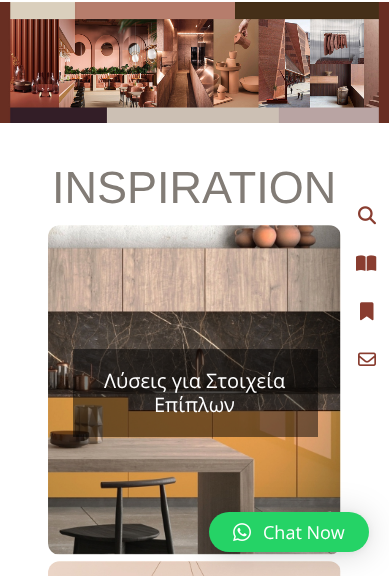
<svg xmlns="http://www.w3.org/2000/svg" width="389" height="576" viewBox="0 0 389 576">
  <rect width="100%" height="100%" fill="#fff"/>
  <image x="0" y="2" width="389" height="121" href="img/1.png"/>
  <image x="48" y="225" width="293" height="330" href="img/2.png"/>
  <path d="M73 349h245v88H73z" fill="#00000080"/>
  <image x="48" y="561" width="293" height="15" href="img/3.png"/>
  <image x="358" y="206" width="18" height="19" href="img/4.png"/>
  <image x="356" y="255" width="21" height="16" href="img/5.png"/>
  <image x="360" y="302" width="14" height="19" href="img/6.png"/>
  <image x="358" y="352" width="18" height="14" href="img/7.png"/>
  <rect x="209" y="514" width="160" height="40" rx="20" fill="#00000029" filter="blur(16px)"/>
  <rect x="209" y="513" width="160" height="40" rx="20" fill="#0000000f" filter="blur(3px)"/>
  <rect x="209" y="512" width="160" height="40" rx="20" fill="#25d366"/>
  <image x="233" y="523" width="18" height="19" href="img/8.png"/>
  <text x="52" y="203" font-family="Liberation Sans" font-size="45" fill="#827c76">INSPIRATION</text>
  <g font-family="Open Sans" font-size="20" fill="#fff">
    <text x="104" y="388">Λύσεις για Στοιχεία</text>
    <text x="154" y="412">Επίπλων</text>
  </g>
  <text x="263" y="539" font-family="Open Sans" font-size="18" fill="#fff">Chat Now</text>
</svg>
